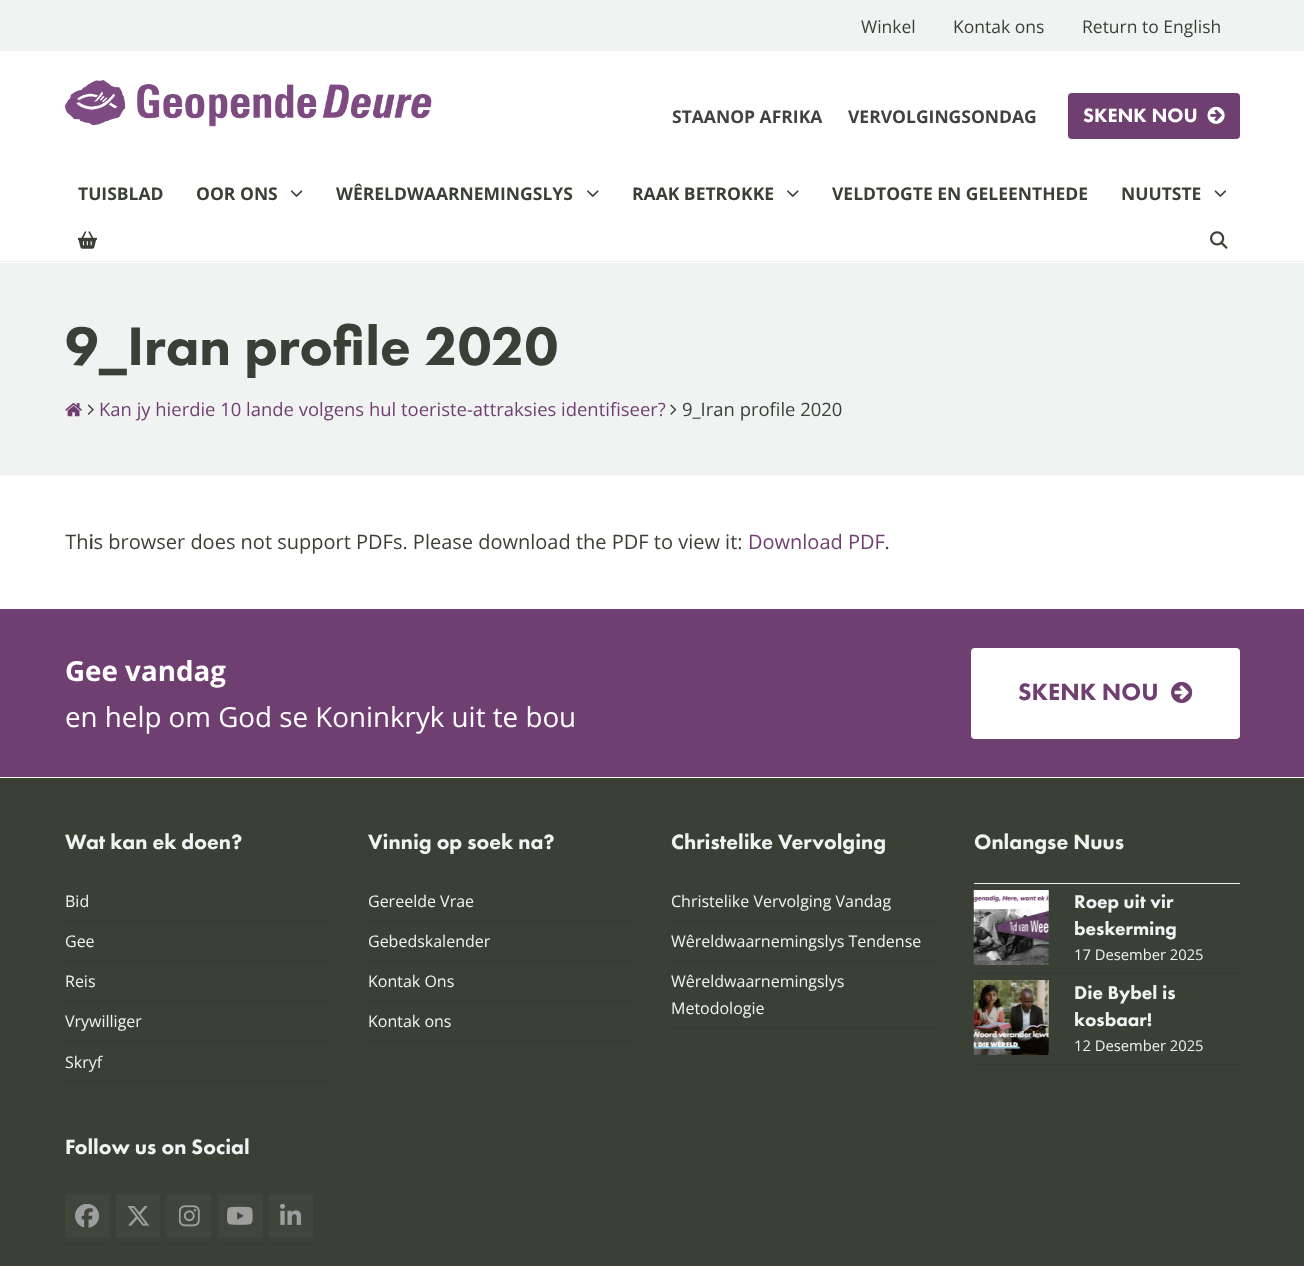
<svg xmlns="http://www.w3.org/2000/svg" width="1304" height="1266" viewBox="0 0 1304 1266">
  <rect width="100%" height="100%" fill="#fff"/>
  <path d="M0 0h1304v51H0z" fill="#f1f3f3"/>
  <image x="65" y="80" width="367" height="47" href="img/1.png"/>
  <rect x="1068" y="93" width="172" height="46" rx="4" fill="#703f71"/>
  <image x="1207" y="106" width="18" height="18" href="img/2.png"/>
  <image x="290" y="190" width="13" height="7" href="img/3.png"/>
  <image x="587" y="190" width="12" height="7" href="img/4.png"/>
  <image x="787" y="190" width="12" height="7" href="img/4.png"/>
  <image x="1214" y="190" width="12" height="7" href="img/5.png"/>
  <image x="78" y="231" width="20" height="18" href="img/6.png"/>
  <image x="1210" y="231" width="18" height="18" href="img/7.png"/>
  <path d="M0 263h1304v211H0z" fill="#f1f3f3"/>
  <path d="M0 261h1304v1H0z" fill="#eee"/>
  <path d="M0 474h1304v1H0z" fill="#eee"/>
  <image x="65" y="403" width="17" height="14" href="img/8.png"/>
  <image x="87" y="404" width="7" height="11" href="img/9.png"/>
  <image x="670" y="404" width="7" height="11" href="img/10.png"/>
  <image x="65" y="533" width="824" height="21" href="img/11.png"/>
  <path d="M0 609h1304v168H0z" fill="#703f71"/>
  <rect x="971" y="648" width="269" height="91" rx="4" fill="#fff"/>
  <image x="1171" y="681" width="22" height="22" href="img/12.png"/>
  <path d="M0 778h1304v488H0z" fill="#3b4037"/>
  <path d="M65 921h266v1H65z" fill="#383838"/>
  <path d="M65 961h266v1H65z" fill="#383838"/>
  <path d="M65 1001h266v1H65z" fill="#383838"/>
  <path d="M65 1041h266v1H65z" fill="#383838"/>
  <path d="M65 1081h266v1H65z" fill="#383838"/>
  <path d="M65 1244h45v1H65z" fill="#383838"/>
  <path d="M65 1194h45v44H65z" fill="#41463d"/>
  <image x="75" y="1204" width="25" height="24" href="img/13.png"/>
  <path d="M116 1244h44v1H116z" fill="#383838"/>
  <path d="M116 1194h44v44H116z" fill="#41463d"/>
  <image x="127" y="1206" width="22" height="20" href="img/14.png"/>
  <path d="M166 1244h45v1H166z" fill="#383838"/>
  <path d="M166 1194h45v44H166z" fill="#41463d"/>
  <image x="179" y="1205" width="21" height="22" href="img/15.png"/>
  <path d="M218 1244h45v1H218z" fill="#383838"/>
  <path d="M218 1194h45v44H218z" fill="#41463d"/>
  <image x="227" y="1206" width="26" height="19" href="img/16.png"/>
  <path d="M269 1244h44v1H269z" fill="#383838"/>
  <path d="M269 1194h44v44H269z" fill="#41463d"/>
  <image x="280" y="1204" width="21" height="21" href="img/17.png"/>
  <path d="M369 921h265v1H369z" fill="#383838"/>
  <path d="M369 961h265v1H369z" fill="#383838"/>
  <path d="M369 1001h265v1H369z" fill="#383838"/>
  <path d="M369 1041h265v1H369z" fill="#383838"/>
  <path d="M671 921h265v1H671z" fill="#383838"/>
  <path d="M671 961h265v1H671z" fill="#383838"/>
  <path d="M671 1028h265v1H671z" fill="#383838"/>
  <path d="M974 883h266v1H974z" fill="#f1f3f3"/>
  <path d="M974 973h266v1H974z" fill="#383838"/>
  <image x="973" y="890" width="76" height="75" href="img/18.png"/>
  <path d="M974 1064h266v1H974z" fill="#383838"/>
  <image x="973" y="980" width="76" height="75" href="img/19.png"/>
  <g font-family="Open Sans" font-size="17.5" fill="#3b4037">
    <text x="861" y="33">Winkel</text>
    <text x="953" y="33">Kontak ons</text>
    <text x="1082" y="33">Return to English</text>
  </g>
  <g font-family="Open Sans" font-size="17.5" font-weight="bold" fill="#414141">
    <text x="672" y="123">STAANOP AFRIKA</text>
    <text x="848" y="123">VERVOLGINGSONDAG</text>
  </g>
  <text x="1083" y="122" font-family="Futura PT" font-size="20" font-weight="900" fill="#fff">SKENK NOU</text>
  <g font-family="Open Sans" font-size="17.5" font-weight="bold" fill="#3b4037">
    <text x="78" y="200">TUISBLAD</text>
    <text x="196" y="200">OOR ONS</text>
    <text x="336" y="200">WÊRELDWAARNEMINGSLYS</text>
    <text x="632" y="200">RAAK BETROKKE</text>
    <text x="832" y="200">VELDTOGTE EN GELEENTHEDE</text>
    <text x="1121" y="200">NUUTSTE</text>
  </g>
  <text x="65" y="365" font-family="Futura PT" font-size="56.25" font-weight="900" fill="#3b4037">9_Iran profile 2020</text>
  <text x="99" y="416" font-family="Open Sans" font-size="18.45" fill="#703f71">Kan jy hierdie 10 lande volgens hul toeriste-attraksies identifiseer?</text>
  <text x="682" y="416" font-family="Open Sans" font-size="18.45" fill="#3b4037">9_Iran profile 2020</text>
  <text x="89" y="549" font-family="Open Sans" font-size="20" fill="#3b4037">i</text>
  <text x="748" y="549" font-family="Open Sans" font-size="20" fill="#703f71">Download PDF</text>
  <text x="65" y="681" font-family="Open Sans" font-size="27.75" font-weight="bold" fill="#fff">Gee vandag</text>
  <text x="65" y="727" font-family="Open Sans" font-size="27.75" fill="#fff">en help om God se Koninkryk uit te bou</text>
  <text x="1018" y="700" font-family="Futura PT" font-size="24.5" font-weight="900" fill="#703f71">SKENK NOU</text>
  <text x="65" y="849" font-family="Futura PT" font-size="21.5" font-weight="900" fill="#f1f3f3">Wat kan ek doen?</text>
  <g font-family="Open Sans" font-size="16" fill="#f1f3f3">
    <text x="65" y="907">Bid</text>
    <text x="65" y="947">Gee</text>
    <text x="65" y="987">Reis</text>
    <text x="65" y="1027">Vrywilliger</text>
    <text x="65" y="1068">Skryf</text>
  </g>
  <g font-family="Futura PT" font-size="21.5" font-weight="900" fill="#f1f3f3">
    <text x="65" y="1154">Follow us on Social</text>
    <text x="368" y="849">Vinnig op soek na?</text>
  </g>
  <g font-family="Open Sans" font-size="16" fill="#f1f3f3">
    <text x="368" y="907">Gereelde Vrae</text>
    <text x="368" y="947">Gebedskalender</text>
    <text x="368" y="987">Kontak Ons</text>
    <text x="368" y="1027">Kontak ons</text>
  </g>
  <text x="671" y="849" font-family="Futura PT" font-size="21.5" font-weight="900" fill="#f1f3f3">Christelike Vervolging</text>
  <g font-family="Open Sans" font-size="16" fill="#f1f3f3">
    <text x="671" y="907">Christelike Vervolging Vandag</text>
    <text x="671" y="947">Wêreldwaarnemingslys Tendense</text>
    <text x="671" y="987">Wêreldwaarnemingslys</text>
    <text x="671" y="1014">Metodologie</text>
  </g>
  <text x="974" y="849" font-family="Futura PT" font-size="21.5" font-weight="900" fill="#f1f3f3">Onlangse Nuus</text>
  <g font-family="Futura PT" font-size="19.25" font-weight="900" fill="#f1f3f3">
    <text x="1074" y="908">Roep uit vir</text>
    <text x="1074" y="935">beskerming</text>
  </g>
  <text x="1074" y="960" font-family="Open Sans" font-size="14.75" fill="#f1f3f3">17 Desember 2025</text>
  <g font-family="Futura PT" font-size="19.25" font-weight="900" fill="#f1f3f3">
    <text x="1074" y="999">Die Bybel is</text>
    <text x="1074" y="1026">kosbaar!</text>
  </g>
  <text x="1074" y="1051" font-family="Open Sans" font-size="14.75" fill="#f1f3f3">12 Desember 2025</text>
</svg>
